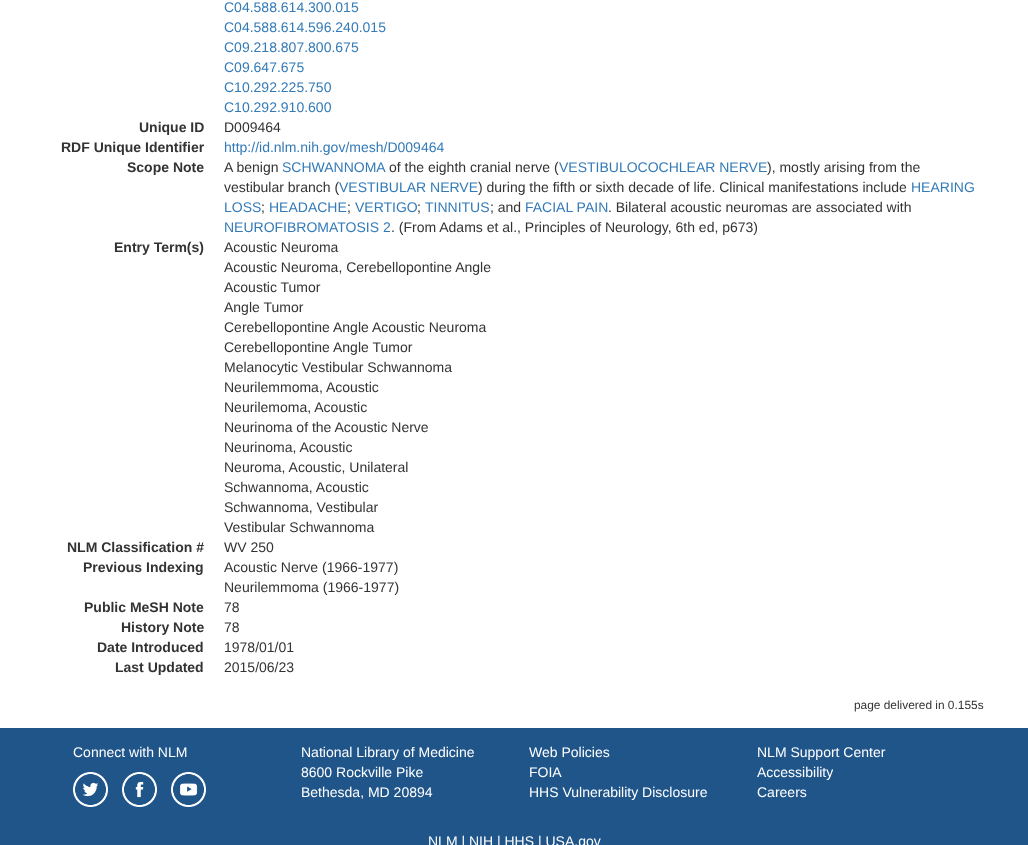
<svg xmlns="http://www.w3.org/2000/svg" width="1028" height="845" viewBox="0 0 1028 845">
  <rect width="100%" height="100%" fill="#fff"/>
  <path d="M0 728h1028v117H0z" fill="#20558a"/>
  <image x="73" y="772" width="35" height="35" href="img/1.png"/>
  <image x="122" y="772" width="35" height="35" href="img/2.png"/>
  <image x="171" y="772" width="35" height="35" href="img/3.png"/>
  <g font-family="Liberation Sans" font-size="14" fill="#337ab7">
    <text x="224" y="12">C04.588.614.300.015</text>
    <text x="224" y="32">C04.588.614.596.240.015</text>
    <text x="224" y="52">C09.218.807.800.675</text>
    <text x="224" y="72">C09.647.675</text>
    <text x="224" y="92">C10.292.225.750</text>
    <text x="224" y="112">C10.292.910.600</text>
  </g>
  <text x="139" y="132" font-family="Liberation Sans" font-size="14" font-weight="bold" fill="#333">Unique ID</text>
  <text x="224" y="132" font-family="Liberation Sans" font-size="14" fill="#333">D009464</text>
  <text x="61" y="152" font-family="Liberation Sans" font-size="14" font-weight="bold" fill="#333">RDF Unique Identifier</text>
  <text x="224" y="152" font-family="Liberation Sans" font-size="14" fill="#337ab7">http://id.nlm.nih.gov/mesh/D009464</text>
  <text x="127" y="172" font-family="Liberation Sans" font-size="14" font-weight="bold" fill="#333">Scope Note</text>
  <text x="224" y="172" font-family="Liberation Sans" font-size="14" fill="#333">A benign</text>
  <text x="282" y="172" font-family="Liberation Sans" font-size="14" fill="#337ab7">SCHWANNOMA</text>
  <text x="389" y="172" font-family="Liberation Sans" font-size="14" fill="#333">of the eighth cranial nerve (</text>
  <text x="559" y="172" font-family="Liberation Sans" font-size="14" fill="#337ab7">VESTIBULOCOCHLEAR NERVE</text>
  <g font-family="Liberation Sans" font-size="14" fill="#333">
    <text x="767" y="172">), mostly arising from the</text>
    <text x="224" y="192">vestibular branch (</text>
  </g>
  <text x="339" y="192" font-family="Liberation Sans" font-size="14" fill="#337ab7">VESTIBULAR NERVE</text>
  <text x="478" y="192" font-family="Liberation Sans" font-size="14" fill="#333">) during the fifth or sixth decade of life. Clinical manifestations include</text>
  <g font-family="Liberation Sans" font-size="14" fill="#337ab7">
    <text x="911" y="192">HEARING</text>
    <text x="224" y="212">LOSS</text>
  </g>
  <text x="261" y="212" font-family="Liberation Sans" font-size="14" fill="#333">;</text>
  <text x="269" y="212" font-family="Liberation Sans" font-size="14" fill="#337ab7">HEADACHE</text>
  <text x="347" y="212" font-family="Liberation Sans" font-size="14" fill="#333">;</text>
  <text x="355" y="212" font-family="Liberation Sans" font-size="14" fill="#337ab7">VERTIGO</text>
  <text x="417" y="212" font-family="Liberation Sans" font-size="14" fill="#333">;</text>
  <text x="425" y="212" font-family="Liberation Sans" font-size="14" fill="#337ab7">TINNITUS</text>
  <text x="490" y="212" font-family="Liberation Sans" font-size="14" fill="#333">; and</text>
  <text x="525" y="212" font-family="Liberation Sans" font-size="14" fill="#337ab7">FACIAL PAIN</text>
  <text x="608" y="212" font-family="Liberation Sans" font-size="14" fill="#333">. Bilateral acoustic neuromas are associated with</text>
  <text x="224" y="232" font-family="Liberation Sans" font-size="14" fill="#337ab7">NEUROFIBROMATOSIS 2</text>
  <text x="391" y="232" font-family="Liberation Sans" font-size="14" fill="#333">. (From Adams et al., Principles of Neurology, 6th ed, p673)</text>
  <text x="114" y="252" font-family="Liberation Sans" font-size="14" font-weight="bold" fill="#333">Entry Term(s)</text>
  <g font-family="Liberation Sans" font-size="14" fill="#333">
    <text x="224" y="252">Acoustic Neuroma</text>
    <text x="224" y="272">Acoustic Neuroma, Cerebellopontine Angle</text>
    <text x="224" y="292">Acoustic Tumor</text>
    <text x="224" y="312">Angle Tumor</text>
    <text x="224" y="332">Cerebellopontine Angle Acoustic Neuroma</text>
    <text x="224" y="352">Cerebellopontine Angle Tumor</text>
    <text x="224" y="372">Melanocytic Vestibular Schwannoma</text>
    <text x="224" y="392">Neurilemmoma, Acoustic</text>
    <text x="224" y="412">Neurilemoma, Acoustic</text>
    <text x="224" y="432">Neurinoma of the Acoustic Nerve</text>
    <text x="224" y="452">Neurinoma, Acoustic</text>
    <text x="224" y="472">Neuroma, Acoustic, Unilateral</text>
    <text x="224" y="492">Schwannoma, Acoustic</text>
    <text x="224" y="512">Schwannoma, Vestibular</text>
    <text x="224" y="532">Vestibular Schwannoma</text>
  </g>
  <text x="67" y="552" font-family="Liberation Sans" font-size="14" font-weight="bold" fill="#333">NLM Classification #</text>
  <text x="224" y="552" font-family="Liberation Sans" font-size="14" fill="#333">WV 250</text>
  <text x="83" y="572" font-family="Liberation Sans" font-size="14" font-weight="bold" fill="#333">Previous Indexing</text>
  <g font-family="Liberation Sans" font-size="14" fill="#333">
    <text x="224" y="572">Acoustic Nerve (1966-1977)</text>
    <text x="224" y="592">Neurilemmoma (1966-1977)</text>
  </g>
  <text x="84" y="612" font-family="Liberation Sans" font-size="14" font-weight="bold" fill="#333">Public MeSH Note</text>
  <text x="224" y="612" font-family="Liberation Sans" font-size="14" fill="#333">78</text>
  <text x="121" y="632" font-family="Liberation Sans" font-size="14" font-weight="bold" fill="#333">History Note</text>
  <text x="224" y="632" font-family="Liberation Sans" font-size="14" fill="#333">78</text>
  <text x="97" y="652" font-family="Liberation Sans" font-size="14" font-weight="bold" fill="#333">Date Introduced</text>
  <text x="224" y="652" font-family="Liberation Sans" font-size="14" fill="#333">1978/01/01</text>
  <text x="115" y="672" font-family="Liberation Sans" font-size="14" font-weight="bold" fill="#333">Last Updated</text>
  <text x="224" y="672" font-family="Liberation Sans" font-size="14" fill="#333">2015/06/23</text>
  <text x="854" y="709" font-family="Liberation Sans" font-size="11.9" fill="#333">page delivered in 0.155s</text>
  <g font-family="Liberation Sans" font-size="14" fill="#fff">
    <text x="73" y="757">Connect with NLM</text>
    <text x="301" y="757">National Library of Medicine</text>
    <text x="301" y="777">8600 Rockville Pike</text>
    <text x="301" y="797">Bethesda, MD 20894</text>
    <text x="529" y="757">Web Policies</text>
    <text x="529" y="777">FOIA</text>
    <text x="529" y="797">HHS Vulnerability Disclosure</text>
    <text x="757" y="757">NLM Support Center</text>
    <text x="757" y="777">Accessibility</text>
    <text x="757" y="797">Careers</text>
    <text x="428" y="846">NLM | NIH | HHS | USA.gov</text>
  </g>
</svg>
